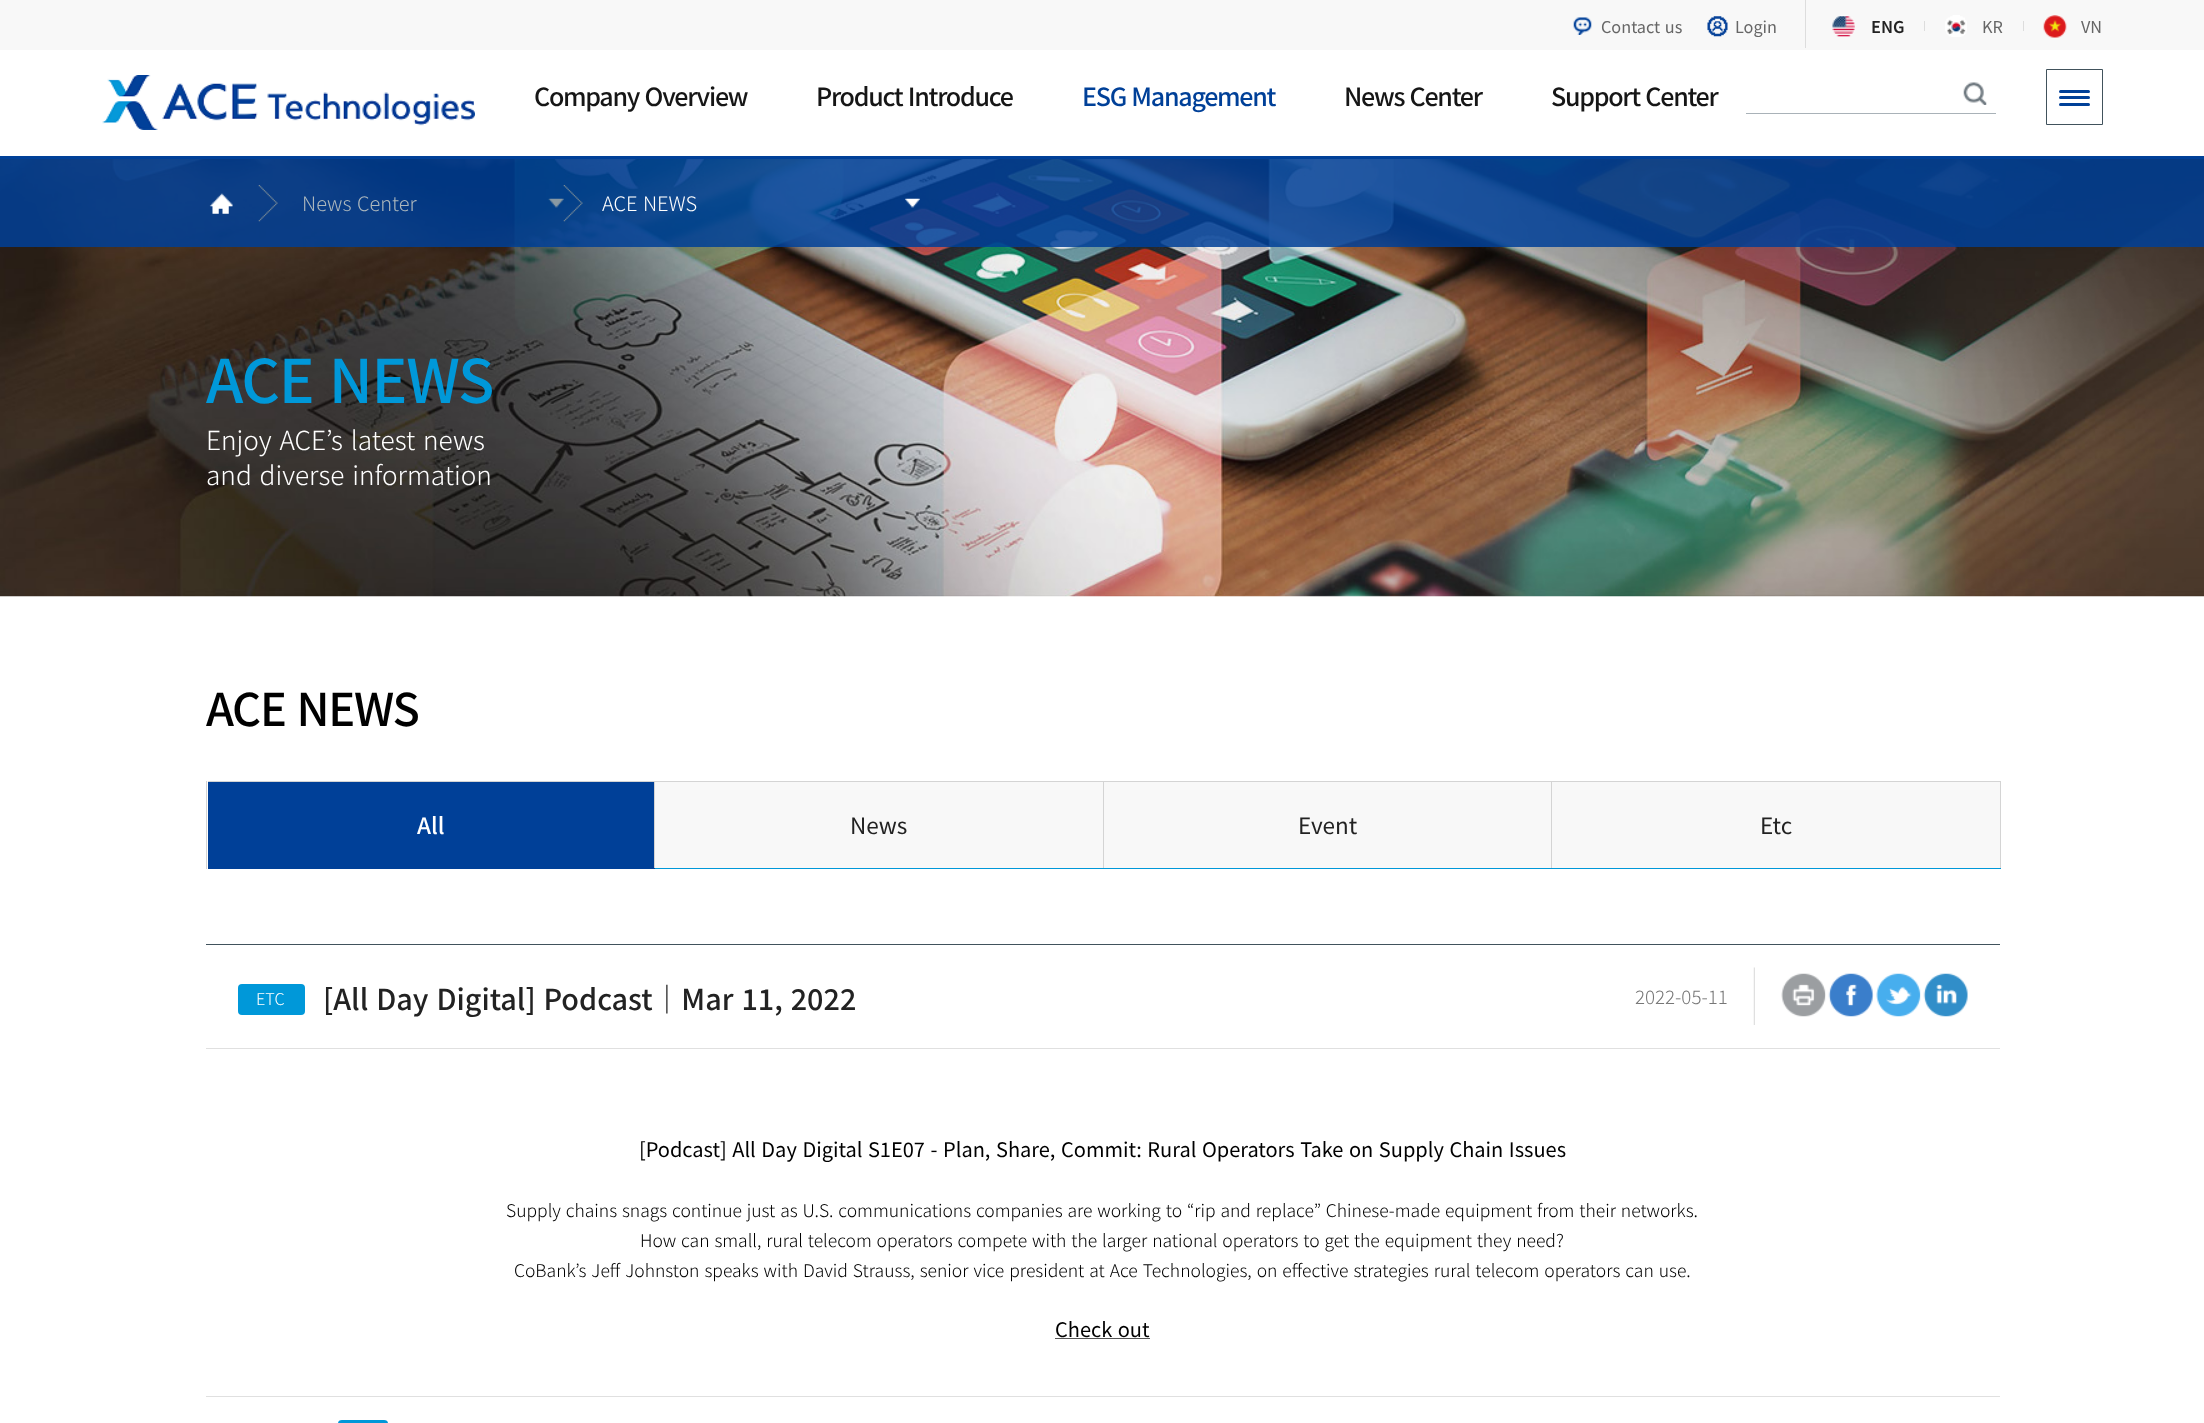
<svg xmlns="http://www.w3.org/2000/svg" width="2204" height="1423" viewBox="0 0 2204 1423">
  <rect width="100%" height="100%" fill="#fff"/>
  <path d="M0 156h2204v3H0z" fill="#004098"/>
  <path d="M0 0h2204v50H0z" fill="#f8f8f8"/>
  <image x="1573" y="17" width="19" height="18" href="img/1.png"/>
  <image x="1707" y="16" width="21" height="21" href="img/2.png"/>
  <path d="M1805 0h1v48H1805z" fill="#ddd"/>
  <image x="1832" y="15" width="23" height="22" href="img/3.png"/>
  <image x="1945" y="15" width="22" height="22" href="img/4.png"/>
  <path d="M1924 21h1v10H1924z" fill="#ddd"/>
  <image x="2043" y="15" width="24" height="23" href="img/5.png"/>
  <path d="M2023 21h1v10H2023z" fill="#ddd"/>
  <image x="102" y="75" width="373" height="55" href="img/6.png"/>
  <path d="M1746 113h250v1H1746z" fill="#a9b2b8"/>
  <image x="1963" y="82" width="24" height="23" href="img/7.png"/>
  <path d="M2046.5 69.5h56v55H2046.5z" fill="none" stroke="#41525c"/>
  <rect x="2059" y="90" width="31" height="3" rx="1.5" fill="#004098"/>
  <rect x="2059" y="96" width="31" height="3" rx="1.5" fill="#004098"/>
  <rect x="2059" y="103" width="31" height="3" rx="1.5" fill="#004098"/>
  <image x="0" y="159" width="2204" height="438" href="img/13.png"/>
  <path d="M0 159h2204v88H0z" fill="#003f98d9"/>
  <image x="258" y="185" width="20" height="37" href="img/8.png"/>
  <image x="209" y="193" width="24" height="21" href="img/9.png"/>
  <image x="563" y="185" width="20" height="37" href="img/10.png"/>
  <image x="548" y="198" width="16" height="10" href="img/11.png"/>
  <image x="905" y="198" width="15" height="10" href="img/12.png"/>
  <path d="M206 781h1v88H206z" fill="#d4d4d4"/>
  <path d="M208 782h446v86H208z" fill="#004098"/>
  <path d="M208 781h1793v1H208z" fill="#d4d4d4"/>
  <path d="M654 781h1v88H654z" fill="#d4d4d4"/>
  <path d="M208 868h447v1H208z" fill="#004098"/>
  <path d="M655 782h448v86H655z" fill="#f8f8f8"/>
  <path d="M1103 781h1v88H1103z" fill="#d4d4d4"/>
  <path d="M655 868h449v1H655z" fill="#0098d9"/>
  <path d="M1104 782h896v86H1104z" fill="#f8f8f8"/>
  <path d="M1551 781h1v88H1551z" fill="#d4d4d4"/>
  <path d="M1104 868h449v1H1104z" fill="#0098d9"/>
  <path d="M2000 781h1v88H2000z" fill="#d4d4d4"/>
  <path d="M1553 868h448v1H1553z" fill="#0098d9"/>
  <path d="M206 944h1794v1H206z" fill="#41525c"/>
  <path d="M206 1396h1794v1H206z" fill="#e0e0e0"/>
  <path d="M206 1048h1794v1H206z" fill="#e0e0e0"/>
  <rect x="238" y="984" width="67" height="31" rx="4" fill="#0098d9"/>
  <image x="1753" y="967" width="2" height="58" href="img/14.png"/>
  <image x="1781" y="973" width="45" height="44" href="img/15.png"/>
  <image x="1828" y="973" width="46" height="44" href="img/16.png"/>
  <image x="1876" y="973" width="45" height="44" href="img/17.png"/>
  <image x="1923" y="973" width="45" height="44" href="img/18.png"/>
  <path d="M1055 1338h95v1H1055z" fill="#555"/>
  <rect x="338" y="1420" width="50" height="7" rx="4" fill="#0098d9"/>
  <g font-family="Noto Sans KR" font-size="16.25" fill="#666">
    <text x="1601" y="33" word-spacing="1">Contact us</text>
    <text x="1735" y="33">Login</text>
  </g>
  <text x="1871" y="33" font-family="Noto Sans KR" font-size="16.25" font-weight="600" fill="#222">ENG</text>
  <g font-family="Noto Sans KR" font-size="16.25" fill="#666">
    <text x="1982" y="33">KR</text>
    <text x="2081" y="33">VN</text>
  </g>
  <g font-family="Noto Sans KR" font-size="25" font-weight="500" letter-spacing="-1.25" fill="#161616">
    <text x="534" y="106" word-spacing="1">Company Overview</text>
    <text x="816" y="106" word-spacing="1">Product Introduce</text>
  </g>
  <text x="1082" y="106" word-spacing="1" font-family="Noto Sans KR" font-size="25" font-weight="500" letter-spacing="-1.25" fill="#004098">ESG Management</text>
  <g font-family="Noto Sans KR" font-size="25" font-weight="500" letter-spacing="-1.25" fill="#161616">
    <text x="1344" y="106" word-spacing="1">News Center</text>
    <text x="1551" y="106" word-spacing="1">Support Center</text>
  </g>
  <text x="302" y="211" word-spacing="1" font-family="Noto Sans KR" font-size="20" font-weight="300" fill="#acb7bd">News Center</text>
  <text x="602" y="211" word-spacing="1" font-family="Noto Sans KR" font-size="20" font-weight="300" fill="#fff">ACE NEWS</text>
  <text x="206" y="403" word-spacing="3" font-family="Noto Sans KR" font-size="60" font-weight="500" letter-spacing="-1.25" fill="#0098d9">ACE NEWS</text>
  <g font-family="Noto Sans KR" font-size="26.25" font-weight="300" fill="#fff">
    <text x="206" y="450" word-spacing="2">Enjoy ACE’s latest news</text>
    <text x="206" y="485" word-spacing="2">and diverse information</text>
  </g>
  <text x="206" y="726" word-spacing="2" font-family="Noto Sans KR" font-size="45" font-weight="500" letter-spacing="-1.25" fill="#000">ACE NEWS</text>
  <text x="417" y="834" font-family="Noto Sans KR" font-size="22.5" font-weight="500" fill="#fff">All</text>
  <g font-family="Noto Sans KR" font-size="22.5" fill="#222">
    <text x="850" y="834">News</text>
    <text x="1298" y="834">Event</text>
    <text x="1760" y="834">Etc</text>
  </g>
  <text x="256" y="1005" font-family="Noto Sans KR" font-size="16.25" font-weight="300" fill="#fff">ETC</text>
  <text x="323" y="1010" word-spacing="1.5" font-family="Noto Sans KR" font-size="28.75" font-weight="500" fill="#222">[All Day Digital] Podcast｜Mar 11, 2022</text>
  <text x="1635" y="1004" font-family="Noto Sans KR" font-size="18.75" font-weight="300" fill="#777">2022-05-11</text>
  <text x="639" y="1157" word-spacing="1.1" font-family="Noto Sans KR" font-size="20" fill="#000">[Podcast] All Day Digital S1E07 - Plan, Share, Commit: Rural Operators Take on Supply Chain Issues</text>
  <g font-family="Noto Sans KR" font-size="17.5" font-weight="300" fill="#000">
    <text x="506" y="1217" word-spacing="1">Supply chains snags continue just as U.S. communications companies are working to “rip and replace” Chinese-made equipment from their networks.</text>
    <text x="640" y="1247" word-spacing="1">How can small, rural telecom operators compete with the larger national operators to get the equipment they need?</text>
    <text x="514" y="1277" word-spacing="1.1">CoBank’s Jeff Johnston speaks with David Strauss, senior vice president at Ace Technologies, on effective strategies rural telecom operators can use.</text>
  </g>
  <text x="1055" y="1337" word-spacing="1" font-family="Noto Sans KR" font-size="20" fill="#000">Check out</text>
</svg>
